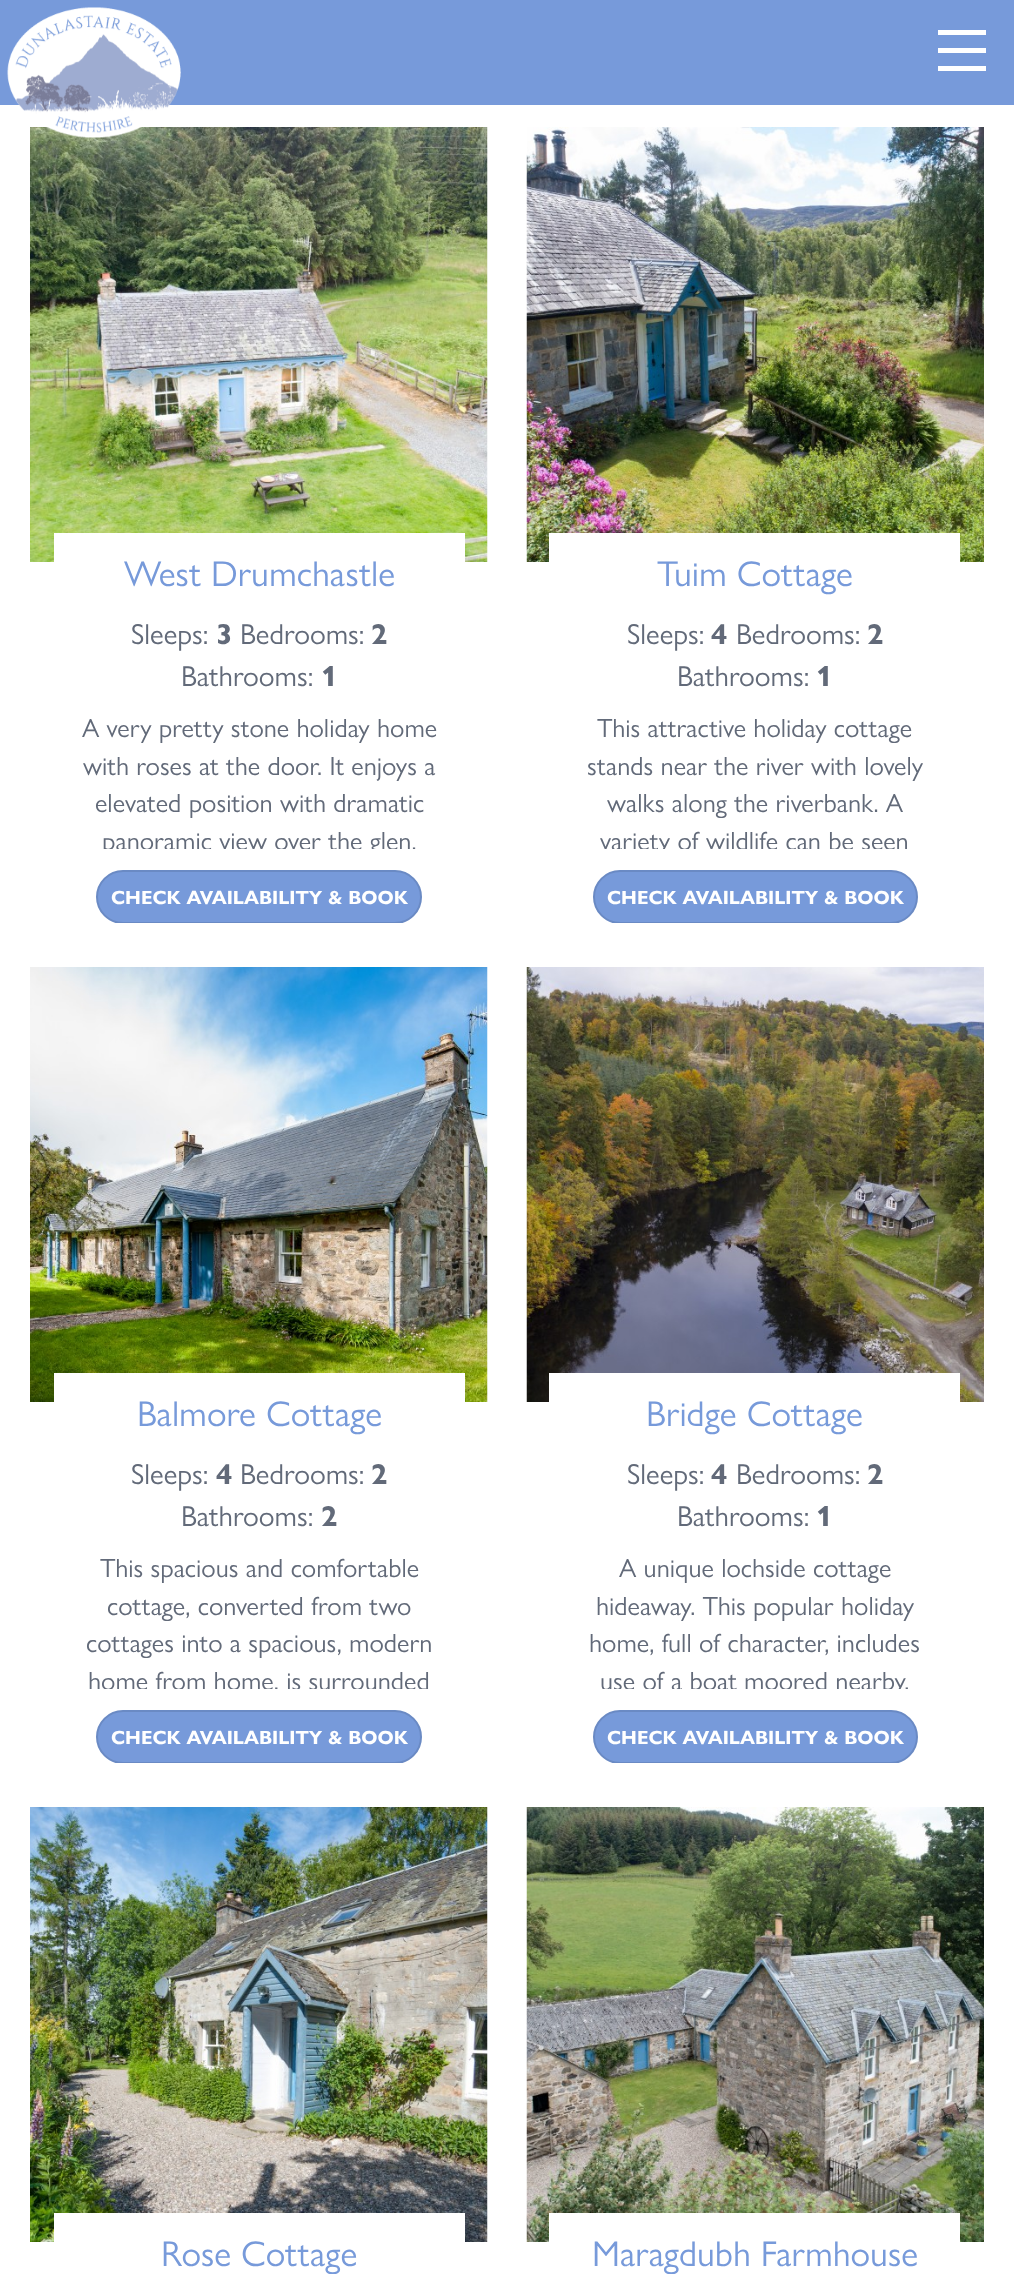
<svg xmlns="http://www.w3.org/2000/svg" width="1014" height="2274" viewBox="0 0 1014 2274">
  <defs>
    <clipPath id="clip1"><path d="M54 533h411v390H54z"/></clipPath>
    <clipPath id="clip2"><path d="M549 533h411v390H549z"/></clipPath>
    <clipPath id="clip3"><path d="M54 1373h411v390H54z"/></clipPath>
    <clipPath id="clip4"><path d="M549 1373h411v390H549z"/></clipPath>
    <clipPath id="clip5"><path d="M78 707h363v142H78z"/></clipPath>
    <clipPath id="clip6"><path d="M573 707h363v142H573z"/></clipPath>
    <clipPath id="clip7"><path d="M78 1547h363v142H78z"/></clipPath>
    <clipPath id="clip8"><path d="M573 1547h363v142H573z"/></clipPath>
  </defs>
  <rect width="100%" height="100%" fill="#fff"/>
  <path d="M0 0h1014v105H0z" fill="#779ada"/>
  <image x="30" y="127" width="458" height="435" href="img/2.png"/>
  <image x="7" y="7" width="174" height="131" href="img/1.png"/>
  <path d="M938 30h48v5H938z" fill="#fff"/>
  <path d="M938 48h48v5H938z" fill="#fff"/>
  <path d="M938 66h48v5H938z" fill="#fff"/>
  <path d="M54 533h411v29H54z" fill="#fff"/>
  <g clip-path="url(#clip1)">
    <rect x="97" y="871" width="324" height="52" rx="26" fill="#779ada" stroke="#6a8ac4" stroke-width="2"/>
  </g>
  <image x="526" y="127" width="458" height="435" href="img/3.png"/>
  <path d="M549 533h411v29H549z" fill="#fff"/>
  <g clip-path="url(#clip2)">
    <rect x="594" y="871" width="323" height="52" rx="26" fill="#779ada" stroke="#6a8ac4" stroke-width="2"/>
  </g>
  <image x="30" y="967" width="458" height="435" href="img/4.png"/>
  <path d="M54 1373h411v29H54z" fill="#fff"/>
  <g clip-path="url(#clip3)">
    <rect x="97" y="1711" width="324" height="52" rx="26" fill="#779ada" stroke="#6a8ac4" stroke-width="2"/>
  </g>
  <image x="526" y="967" width="458" height="435" href="img/5.png"/>
  <path d="M549 1373h411v29H549z" fill="#fff"/>
  <g clip-path="url(#clip4)">
    <rect x="594" y="1711" width="323" height="52" rx="26" fill="#779ada" stroke="#6a8ac4" stroke-width="2"/>
  </g>
  <image x="30" y="1807" width="458" height="435" href="img/6.png"/>
  <path d="M54 2213h411v29H54z" fill="#fff"/>
  <image x="526" y="1807" width="458" height="435" href="img/7.png"/>
  <path d="M549 2213h411v29H549z" fill="#fff"/>
  <text x="124" y="586" font-family="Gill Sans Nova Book" font-size="36" fill="#779ada">West Drumchastle</text>
  <text x="131" y="644" font-family="Gill Sans Nova Book" font-size="29" fill="#626a79">Sleeps:</text>
  <text x="216" y="644" font-family="Gill Sans Nova Book" font-size="29" font-weight="bold" fill="#626a79">3</text>
  <text x="240" y="644" font-family="Gill Sans Nova Book" font-size="29" fill="#626a79">Bedrooms:</text>
  <text x="371" y="644" font-family="Gill Sans Nova Book" font-size="29" font-weight="bold" fill="#626a79">2</text>
  <text x="181" y="686" font-family="Gill Sans Nova Book" font-size="29" fill="#626a79">Bathrooms:</text>
  <text x="321" y="686" font-family="Gill Sans Nova Book" font-size="29" font-weight="bold" fill="#626a79">1</text>
  <g font-family="Gill Sans Nova Book" font-size="26.4" fill="#626a79">
    <text x="82" y="737">A very pretty stone holiday home</text>
    <text x="83" y="775">with roses at the door. It enjoys a</text>
    <text x="95" y="812">elevated position with dramatic</text>
  </g>
  <g clip-path="url(#clip5)">
    <text x="102" y="850" font-family="Gill Sans Nova Book" font-size="26.4" fill="#626a79">panoramic view over the glen.</text>
  </g>
  <text x="111" y="904" font-family="Gill Sans Nova Book" font-size="19.25" font-weight="bold" fill="#fff">CHECK AVAILABILITY &amp; BOOK</text>
  <text x="657" y="586" font-family="Gill Sans Nova Book" font-size="36" fill="#779ada">Tuim Cottage</text>
  <text x="627" y="644" font-family="Gill Sans Nova Book" font-size="29" fill="#626a79">Sleeps:</text>
  <text x="711" y="644" font-family="Gill Sans Nova Book" font-size="29" font-weight="bold" fill="#626a79">4</text>
  <text x="736" y="644" font-family="Gill Sans Nova Book" font-size="29" fill="#626a79">Bedrooms:</text>
  <text x="867" y="644" font-family="Gill Sans Nova Book" font-size="29" font-weight="bold" fill="#626a79">2</text>
  <text x="677" y="686" font-family="Gill Sans Nova Book" font-size="29" fill="#626a79">Bathrooms:</text>
  <text x="816" y="686" font-family="Gill Sans Nova Book" font-size="29" font-weight="bold" fill="#626a79">1</text>
  <g font-family="Gill Sans Nova Book" font-size="26.4" fill="#626a79">
    <text x="597" y="737">This attractive holiday cottage</text>
    <text x="587" y="775">stands near the river with lovely</text>
    <text x="607" y="812">walks along the riverbank. A</text>
  </g>
  <g clip-path="url(#clip6)">
    <text x="600" y="850" font-family="Gill Sans Nova Book" font-size="26.4" fill="#626a79">variety of wildlife can be seen</text>
  </g>
  <text x="607" y="904" font-family="Gill Sans Nova Book" font-size="19.25" font-weight="bold" fill="#fff">CHECK AVAILABILITY &amp; BOOK</text>
  <text x="137" y="1426" font-family="Gill Sans Nova Book" font-size="36" fill="#779ada">Balmore Cottage</text>
  <text x="131" y="1484" font-family="Gill Sans Nova Book" font-size="29" fill="#626a79">Sleeps:</text>
  <text x="216" y="1484" font-family="Gill Sans Nova Book" font-size="29" font-weight="bold" fill="#626a79">4</text>
  <text x="240" y="1484" font-family="Gill Sans Nova Book" font-size="29" fill="#626a79">Bedrooms:</text>
  <text x="371" y="1484" font-family="Gill Sans Nova Book" font-size="29" font-weight="bold" fill="#626a79">2</text>
  <text x="181" y="1526" font-family="Gill Sans Nova Book" font-size="29" fill="#626a79">Bathrooms:</text>
  <text x="321" y="1526" font-family="Gill Sans Nova Book" font-size="29" font-weight="bold" fill="#626a79">2</text>
  <g font-family="Gill Sans Nova Book" font-size="26.4" fill="#626a79">
    <text x="100" y="1577">This spacious and comfortable</text>
    <text x="107" y="1615">cottage, converted from two</text>
    <text x="86" y="1652">cottages into a spacious, modern</text>
  </g>
  <g clip-path="url(#clip7)">
    <text x="88" y="1690" font-family="Gill Sans Nova Book" font-size="26.4" fill="#626a79">home from home, is surrounded</text>
  </g>
  <text x="111" y="1744" font-family="Gill Sans Nova Book" font-size="19.25" font-weight="bold" fill="#fff">CHECK AVAILABILITY &amp; BOOK</text>
  <text x="646" y="1426" font-family="Gill Sans Nova Book" font-size="36" fill="#779ada">Bridge Cottage</text>
  <text x="627" y="1484" font-family="Gill Sans Nova Book" font-size="29" fill="#626a79">Sleeps:</text>
  <text x="711" y="1484" font-family="Gill Sans Nova Book" font-size="29" font-weight="bold" fill="#626a79">4</text>
  <text x="736" y="1484" font-family="Gill Sans Nova Book" font-size="29" fill="#626a79">Bedrooms:</text>
  <text x="867" y="1484" font-family="Gill Sans Nova Book" font-size="29" font-weight="bold" fill="#626a79">2</text>
  <text x="677" y="1526" font-family="Gill Sans Nova Book" font-size="29" fill="#626a79">Bathrooms:</text>
  <text x="816" y="1526" font-family="Gill Sans Nova Book" font-size="29" font-weight="bold" fill="#626a79">1</text>
  <g font-family="Gill Sans Nova Book" font-size="26.4" fill="#626a79">
    <text x="619" y="1577">A unique lochside cottage</text>
    <text x="596" y="1615">hideaway. This popular holiday</text>
    <text x="589" y="1652">home, full of character, includes</text>
  </g>
  <g clip-path="url(#clip8)">
    <text x="600" y="1690" font-family="Gill Sans Nova Book" font-size="26.4" fill="#626a79">use of a boat moored nearby.</text>
  </g>
  <text x="607" y="1744" font-family="Gill Sans Nova Book" font-size="19.25" font-weight="bold" fill="#fff">CHECK AVAILABILITY &amp; BOOK</text>
  <g font-family="Gill Sans Nova Book" font-size="36" fill="#779ada">
    <text x="161" y="2266">Rose Cottage</text>
    <text x="592" y="2266">Maragdubh Farmhouse</text>
  </g>
</svg>
